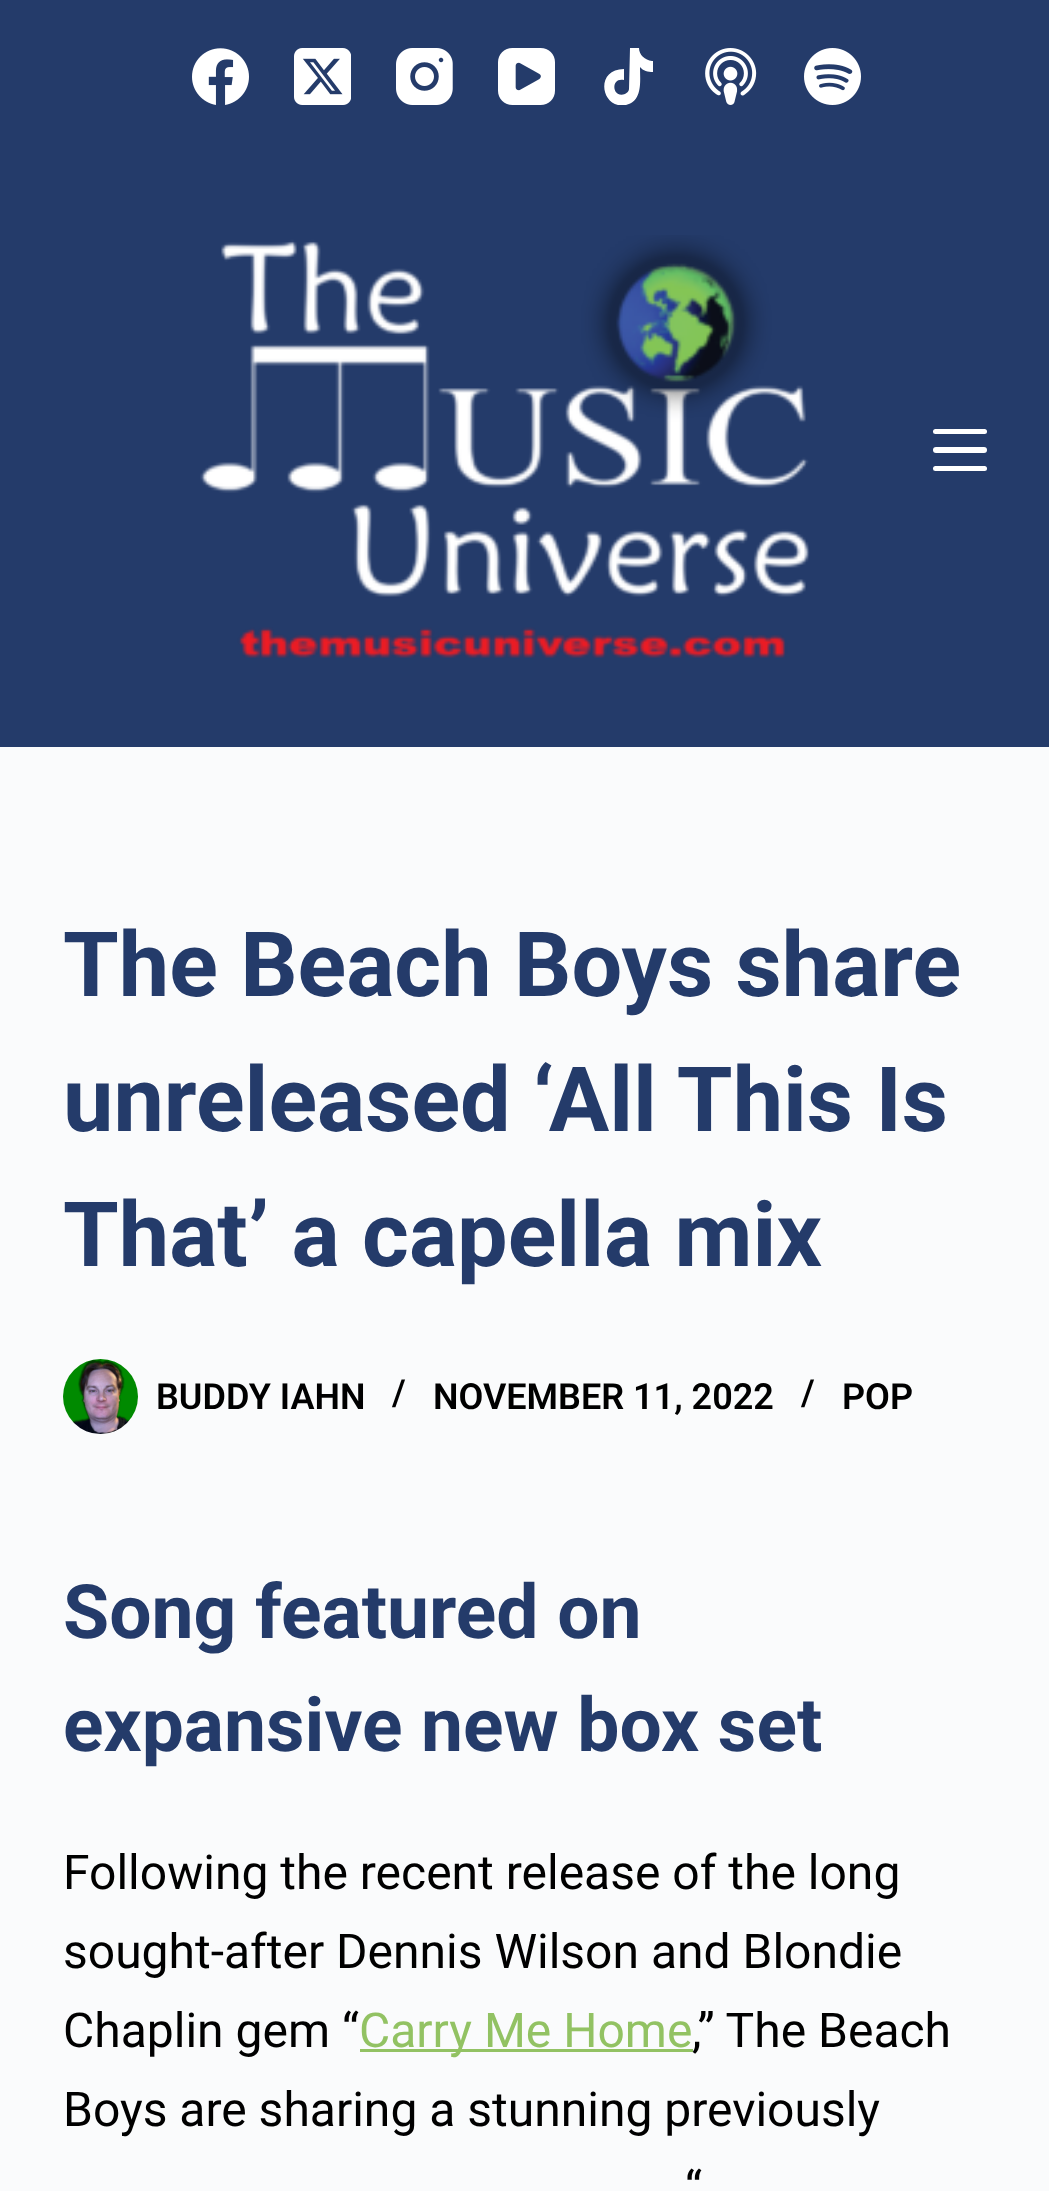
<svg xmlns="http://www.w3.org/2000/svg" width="1049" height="2191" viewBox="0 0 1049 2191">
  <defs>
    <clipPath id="clip1"><path d="M600 48h57v57H600z"/></clipPath>
  </defs>
  <rect width="100%" height="100%" fill="#fafbfc"/>
  <path d="M0 0h1049v747H0z" fill="#243b6a"/>
  <image x="200" y="235" width="610" height="423" href="img/1.png"/>
  <rect x="933" y="429" width="54" height="5" rx="2.5" fill="#fff"/>
  <rect x="933" y="447" width="54" height="6" rx="3" fill="#fff"/>
  <rect x="933" y="466" width="54" height="5" rx="2.5" fill="#fff"/>
  <image x="192" y="48" width="57" height="57" href="img/2.png"/>
  <image x="294" y="48" width="57" height="57" href="img/3.png"/>
  <image x="396" y="48" width="57" height="57" href="img/4.png"/>
  <image x="498" y="48" width="57" height="57" href="img/5.png"/>
  <g clip-path="url(#clip1)">
    <path d="M652 61C645 60 639 55 639 48H630L629 89C629 91 627 93 625 94C612 99 610 77 624 80V69C594 69 601 110 626 105C643 101 640 81 640 67C643 71 648 72 653 72V61Z" fill="#fff"/>
  </g>
  <image x="705" y="48" width="52" height="57" href="img/6.png"/>
  <image x="804" y="48" width="57" height="57" href="img/7.png"/>
  <image x="63" y="1359" width="75" height="75" href="img/8.png"/>
  <path d="M360 2049h333v3H360z" fill="#92c263"/>
  <g font-family="Roboto" font-size="90" font-weight="bold" fill="#243b6a">
    <text x="63" y="996">The Beach Boys share</text>
    <text x="63" y="1131">unreleased ‘All This Is</text>
    <text x="63" y="1266">That’ a capella mix</text>
  </g>
  <g font-family="Roboto" font-size="36" font-weight="600" fill="#000">
    <text x="156" y="1409">BUDDY IAHN</text>
    <text x="392" y="1405">/</text>
    <text x="433" y="1409">NOVEMBER 11, 2022</text>
    <text x="801" y="1405">/</text>
    <text x="842" y="1409">POP</text>
  </g>
  <g font-family="Roboto" font-size="75" font-weight="bold" fill="#243b6a">
    <text x="63" y="1638">Song featured on</text>
    <text x="63" y="1751">expansive new box set</text>
  </g>
  <g font-family="Roboto" font-size="48" fill="#000">
    <text x="63" y="1889">Following the recent release of the long</text>
    <text x="63" y="1968">sought-after Dennis Wilson and Blondie</text>
    <text x="63" y="2047">Chaplin gem “</text>
  </g>
  <text x="359" y="2047" font-family="Roboto" font-size="48" fill="#92c263">Carry Me Home</text>
  <g font-family="Roboto" font-size="48" fill="#000">
    <text x="692" y="2047">,” The Beach</text>
    <text x="63" y="2126">Boys are sharing a stunning previously</text>
    <text x="685" y="2205">“</text>
  </g>
</svg>
